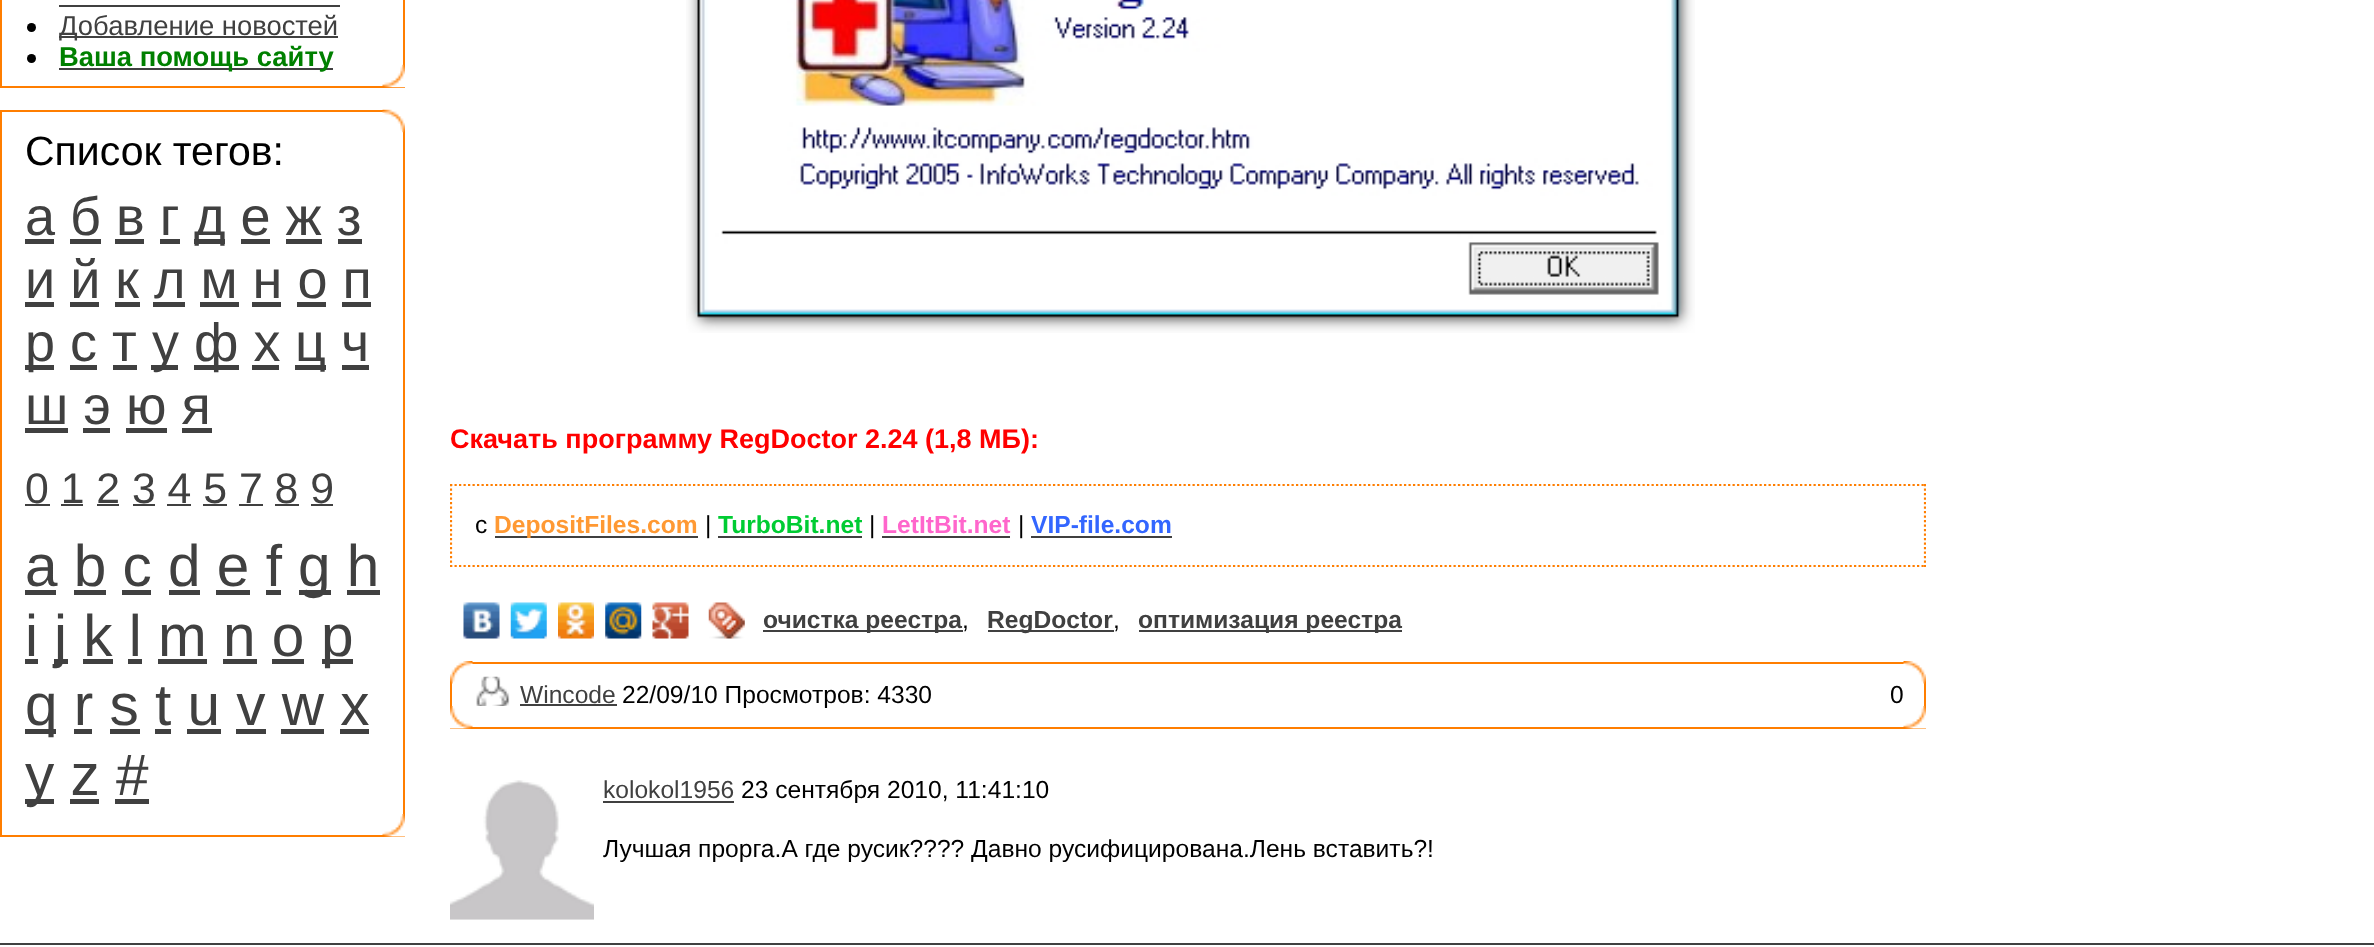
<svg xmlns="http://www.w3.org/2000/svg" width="2374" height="947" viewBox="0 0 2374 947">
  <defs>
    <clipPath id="clip1"><path d="M450 0h1476v567H450z"/></clipPath>
  </defs>
  <rect width="100%" height="100%" fill="#fff"/>
  <path d="M1 -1h403v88H1z" fill="none" stroke="#ff7e00" stroke-width="2"/>
  <path d="M59 5h281v2H59z" fill="#404040"/>
  <circle cx="31.5" cy="27.5" r="4.5" fill="#000"/>
  <path d="M59 36h279v2H59z" fill="#404040"/>
  <circle cx="31.5" cy="58.5" r="4.5" fill="#000"/>
  <path d="M59 68h274v2H59z" fill="#404040"/>
  <image x="382" y="64" width="23" height="24" href="img/1.png"/>
  <path d="M1 111h403v725H1z" fill="none" stroke="#ff7e00" stroke-width="2"/>
  <image x="382" y="109" width="23" height="24" href="img/2.png"/>
  <path d="M25 239h29v5H25z" fill="#404040"/>
  <path d="M194 239h31v5H194z" fill="#404040"/>
  <path d="M70 239h31v5H70z" fill="#404040"/>
  <path d="M115 239h29v5H115z" fill="#404040"/>
  <path d="M160 239h20v5H160z" fill="#404040"/>
  <path d="M241 239h29v5H241z" fill="#404040"/>
  <path d="M286 239h36v5H286z" fill="#404040"/>
  <path d="M338 239h24v5H338z" fill="#404040"/>
  <path d="M25 302h29v5H25z" fill="#404040"/>
  <path d="M70 302h29v5H70z" fill="#404040"/>
  <path d="M115 302h25v5H115z" fill="#404040"/>
  <path d="M153 302h32v5H153z" fill="#404040"/>
  <path d="M200 302h39v5H200z" fill="#404040"/>
  <path d="M252 302h29v5H252z" fill="#404040"/>
  <path d="M297 302h29v5H297z" fill="#404040"/>
  <path d="M342 302h29v5H342z" fill="#404040"/>
  <path d="M25 365h29v5H25z" fill="#404040"/>
  <path d="M151 365h27v5H151z" fill="#404040"/>
  <path d="M194 365h45v5H194z" fill="#404040"/>
  <path d="M295 365h31v5H295z" fill="#404040"/>
  <path d="M70 365h27v5H70z" fill="#404040"/>
  <path d="M113 365h24v5H113z" fill="#404040"/>
  <path d="M252 365h27v5H252z" fill="#404040"/>
  <path d="M342 365h27v5H342z" fill="#404040"/>
  <path d="M25 428h43v5H25z" fill="#404040"/>
  <path d="M83 428h27v5H83z" fill="#404040"/>
  <path d="M126 428h41v5H126z" fill="#404040"/>
  <path d="M182 428h30v5H182z" fill="#404040"/>
  <path d="M25 504h25v2H25z" fill="#404040"/>
  <path d="M61 504h22v2H61z" fill="#404040"/>
  <path d="M97 504h22v2H97z" fill="#404040"/>
  <path d="M133 504h22v2H133z" fill="#404040"/>
  <path d="M167 504h24v2H167z" fill="#404040"/>
  <path d="M203 504h24v2H203z" fill="#404040"/>
  <path d="M239 504h24v2H239z" fill="#404040"/>
  <path d="M275 504h24v2H275z" fill="#404040"/>
  <path d="M311 504h22v2H311z" fill="#404040"/>
  <path d="M25 590h31v5H25z" fill="#404040"/>
  <path d="M299 590h32v5H299z" fill="#404040"/>
  <path d="M74 590h32v5H74z" fill="#404040"/>
  <path d="M122 590h29v5H122z" fill="#404040"/>
  <path d="M169 590h31v5H169z" fill="#404040"/>
  <path d="M216 590h34v5H216z" fill="#404040"/>
  <path d="M266 590h15v5H266z" fill="#404040"/>
  <path d="M347 590h33v5H347z" fill="#404040"/>
  <path d="M25 659h13v5H25z" fill="#404040"/>
  <path d="M54 659h14v5H54z" fill="#404040"/>
  <path d="M322 659h31v5H322z" fill="#404040"/>
  <path d="M83 659h30v5H83z" fill="#404040"/>
  <path d="M128 659h14v5H128z" fill="#404040"/>
  <path d="M158 659h49v5H158z" fill="#404040"/>
  <path d="M223 659h34v5H223z" fill="#404040"/>
  <path d="M272 659h32v5H272z" fill="#404040"/>
  <path d="M25 729h31v5H25z" fill="#404040"/>
  <path d="M74 729h18v5H74z" fill="#404040"/>
  <path d="M110 729h30v5H110z" fill="#404040"/>
  <path d="M155 729h16v5H155z" fill="#404040"/>
  <path d="M187 729h34v5H187z" fill="#404040"/>
  <path d="M236 729h30v5H236z" fill="#404040"/>
  <path d="M281 729h43v5H281z" fill="#404040"/>
  <path d="M340 729h29v5H340z" fill="#404040"/>
  <path d="M25 799h29v5H25z" fill="#404040"/>
  <path d="M70 799h29v5H70z" fill="#404040"/>
  <path d="M115 799h34v5H115z" fill="#404040"/>
  <image x="382" y="814" width="23" height="23" href="img/3.png"/>
  <image x="686" y="0" width="1009" height="333" href="img/4.png"/>
  <path d="M450 485H1926" fill="none" stroke="#ff7e00" stroke-width="2.2" stroke-dasharray="2.25 2.25"/>
  <g clip-path="url(#clip1)">
    <path d="M1925 484V567" fill="none" stroke="#ff7e00" stroke-width="2.2" stroke-dasharray="2.25 2.25"/>
    <path d="M450 566H1926" fill="none" stroke="#ff7e00" stroke-width="2.2" stroke-dasharray="2.25 2.25"/>
    <path d="M451 484V567" fill="none" stroke="#ff7e00" stroke-width="2.2" stroke-dasharray="2.25 2.25"/>
  </g>
  <path d="M495 536h203v2H495z" fill="#404040"/>
  <path d="M718 536h144v2H718z" fill="#404040"/>
  <path d="M882 536h128v2H882z" fill="#404040"/>
  <path d="M1031 536h141v2H1031z" fill="#404040"/>
  <image x="463" y="602" width="37" height="37" href="img/5.png"/>
  <image x="510" y="602" width="37" height="37" href="img/6.png"/>
  <image x="558" y="602" width="36" height="37" href="img/7.png"/>
  <image x="605" y="602" width="37" height="37" href="img/8.png"/>
  <image x="652" y="602" width="37" height="37" href="img/9.png"/>
  <image x="708" y="602" width="37" height="37" href="img/10.png"/>
  <path d="M763 630h200v2H763z" fill="#404040"/>
  <path d="M988 630h126v2H988z" fill="#404040"/>
  <path d="M1139 630h263v2H1139z" fill="#404040"/>
  <path d="M451 663h1474v65H451z" fill="none" stroke="#ff7e00" stroke-width="2"/>
  <image x="450" y="661" width="23" height="23" href="img/11.png"/>
  <image x="1903" y="661" width="23" height="23" href="img/12.png"/>
  <image x="476" y="676" width="34" height="30" href="img/13.png"/>
  <path d="M520 704h97v2H520z" fill="#404040"/>
  <image x="450" y="706" width="23" height="23" href="img/14.png"/>
  <image x="1903" y="706" width="23" height="23" href="img/15.png"/>
  <image x="450" y="780" width="144" height="140" href="img/16.png"/>
  <path d="M603 801h131v2H603z" fill="#404040"/>
  <path d="M0 943h2374v2H0z" fill="#404040"/>
  <text x="59" y="35" font-family="Liberation Sans" font-size="27.4" fill="#404040">Добавление новостей</text>
  <text x="59" y="66" font-family="Liberation Sans" font-size="27.4" font-weight="bold" fill="#008000">Ваша помощь сайту</text>
  <text x="25" y="165" font-family="Liberation Sans" font-size="41" fill="#000">Список тегов:</text>
  <g font-family="Liberation Sans" font-size="54" fill="#404040">
    <text x="25" y="235">а б в г</text>
    <text x="194" y="235">д е ж з</text>
    <text x="25" y="298">и й к л м н о п</text>
    <text x="25" y="361">р с т</text>
    <text x="152" y="361">у</text>
    <text x="194" y="361">ф х</text>
    <text x="295" y="361">ц ч</text>
    <text x="25" y="424">ш э ю я</text>
  </g>
  <text x="25" y="503" font-family="Liberation Sans" font-size="42.75" fill="#404040">0 1 2 3 4 5 7 8 9</text>
  <g font-family="Liberation Sans" font-size="58.5" fill="#404040">
    <text x="25" y="586">a b c d e f</text>
    <text x="298" y="586">g h</text>
    <text x="25" y="656">i</text>
    <text x="54" y="656">j k l m n o</text>
    <text x="321" y="656">p</text>
    <text x="25" y="725">q r s t u v w x</text>
    <text x="25" y="795">y z #</text>
  </g>
  <text x="450" y="448" font-family="Liberation Sans" font-size="27" font-weight="bold" fill="#f00">Скачать программу RegDoctor 2.24 (1,8 МБ):</text>
  <text x="475" y="533" font-family="Liberation Sans" font-size="24.6" fill="#000">с</text>
  <text x="494" y="533" font-family="Liberation Sans" font-size="24.6" font-weight="bold" fill="#f93">DepositFiles.com</text>
  <text x="705" y="533" font-family="Liberation Sans" font-size="24.6" fill="#000">|</text>
  <text x="718" y="533" font-family="Liberation Sans" font-size="24.6" font-weight="bold" fill="#0c3">TurboBit.net</text>
  <text x="869" y="533" font-family="Liberation Sans" font-size="24.6" fill="#000">|</text>
  <text x="882" y="533" font-family="Liberation Sans" font-size="24.6" font-weight="bold" fill="#f6c">LetItBit.net</text>
  <text x="1018" y="533" font-family="Liberation Sans" font-size="24.6" fill="#000">|</text>
  <text x="1031" y="533" font-family="Liberation Sans" font-size="24.6" font-weight="bold" fill="#36f">VIP-file.com</text>
  <text x="763" y="628" font-family="Liberation Sans" font-size="24.6" font-weight="bold" fill="#404040">очистка реестра</text>
  <text x="962" y="628" font-family="Liberation Sans" font-size="24.6" fill="#000">,</text>
  <text x="987" y="628" font-family="Liberation Sans" font-size="24.6" font-weight="bold" fill="#404040">RegDoctor</text>
  <text x="1113" y="628" font-family="Liberation Sans" font-size="24.6" fill="#000">,</text>
  <text x="1138" y="628" font-family="Liberation Sans" font-size="24.6" font-weight="bold" fill="#404040">оптимизация реестра</text>
  <text x="520" y="703" font-family="Liberation Sans" font-size="24.6" fill="#404040">Wincode</text>
  <g font-family="Liberation Sans" font-size="24.6" fill="#000">
    <text x="622" y="703">22/09/10 Просмотров: 4330</text>
    <text x="1890" y="703">0</text>
  </g>
  <text x="603" y="798" font-family="Liberation Sans" font-size="24.6" fill="#404040">kolokol1956</text>
  <g font-family="Liberation Sans" font-size="24.6" fill="#000">
    <text x="741" y="798">23 сентября 2010, 11:41:10</text>
    <text x="603" y="857">Лучшая прорга.А где русик???? Давно русифицирована.Лень вставить?!</text>
  </g>
</svg>
